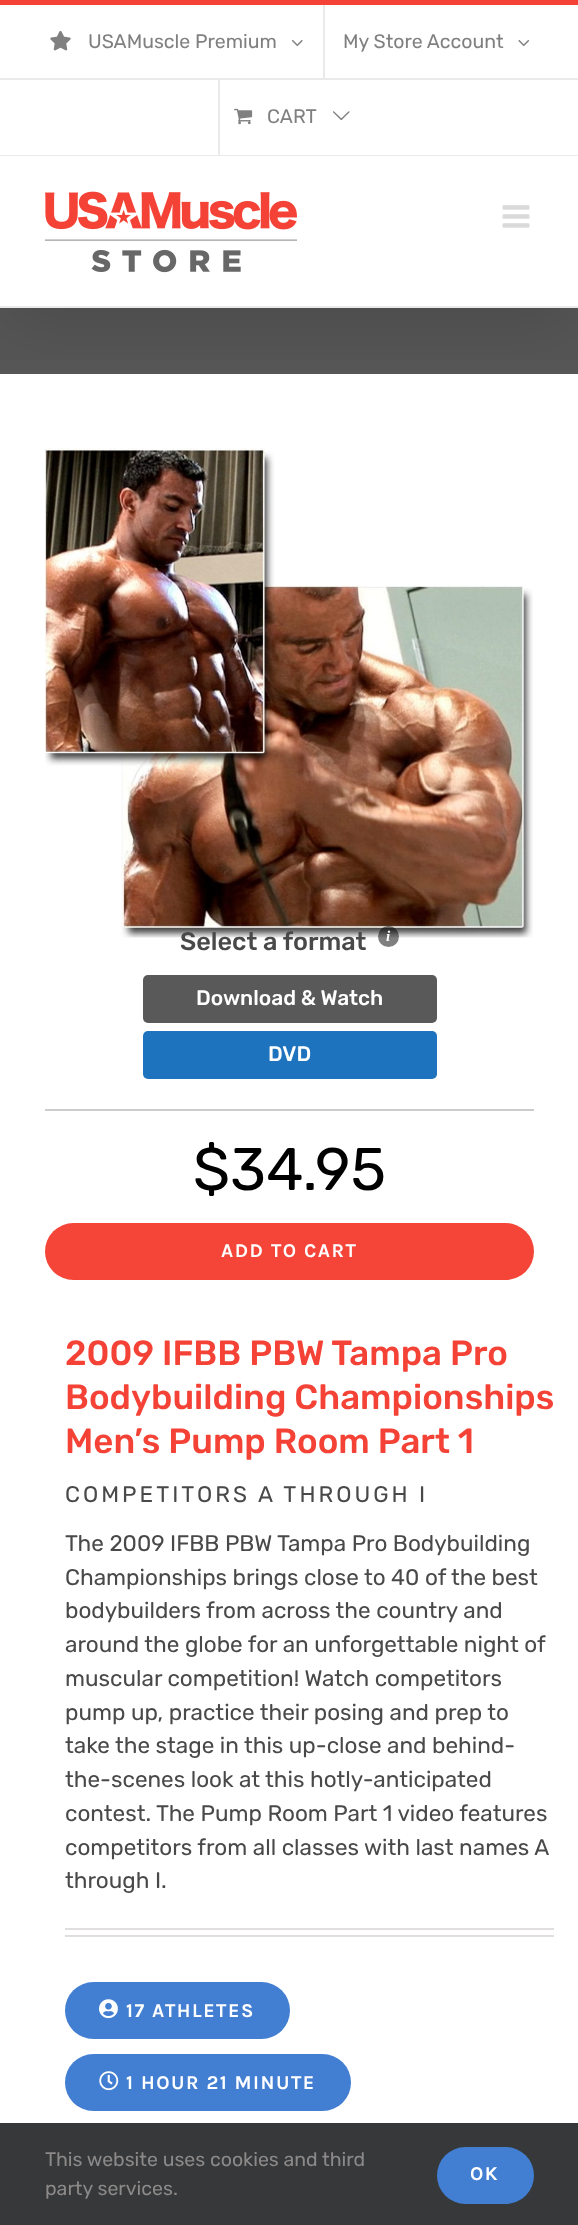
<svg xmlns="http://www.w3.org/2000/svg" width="578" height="2225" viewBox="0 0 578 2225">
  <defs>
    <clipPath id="clip1"><path d="M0 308h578v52H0z"/></clipPath>
  </defs>
  <rect width="100%" height="100%" fill="#fff"/>
  <path d="M0 308h578v66H0z" fill="#565656"/>
  <g clip-path="url(#clip1)">
    <path d="M3 18h573v302H3z" fill="#00000024" filter="blur(37.5px)"/>
  </g>
  <path d="M0 0h578v5H0z" fill="#f44336"/>
  <path d="M0 155h578v1H0z" fill="#eaeaea"/>
  <image x="50" y="31" width="21" height="20" href="img/1.png"/>
  <image x="291" y="40" width="12" height="7" href="img/2.png"/>
  <path d="M323 5h2v75H323z" fill="#eaeaea"/>
  <image x="518" y="40" width="12" height="7" href="img/3.png"/>
  <path d="M0 78h578v2H0z" fill="#eaeaea"/>
  <path d="M218 80h2v75H218z" fill="#eaeaea"/>
  <image x="234" y="108" width="19" height="17" href="img/4.png"/>
  <image x="332" y="111" width="18" height="10" href="img/5.png"/>
  <path d="M0 306h578v2H0z" fill="#eaeaea"/>
  <image x="45" y="191" width="252" height="82" href="img/6.png"/>
  <image x="502" y="205" width="28" height="23" href="img/7.png"/>
  <image x="45" y="448" width="488" height="490" href="img/8.png"/>
  <circle cx="388.5" cy="936.5" r="10.5" fill="#00000080"/>
  <rect x="143" y="975" width="294" height="48" rx="5" fill="#595959"/>
  <rect x="143" y="1031" width="294" height="48" rx="5" fill="#1e73be"/>
  <path d="M45 1109h489v2H45z" fill="#ccc"/>
  <rect x="45" y="1223" width="489" height="57" rx="28.5" fill="#f44538"/>
  <path d="M65 1928h489v2H65z" fill="#e0dede"/>
  <path d="M65 1935h489v2H65z" fill="#e0dede"/>
  <rect x="65" y="1982" width="225" height="57" rx="28.5" fill="#427ed1"/>
  <image x="99" y="1999" width="19" height="20" href="img/9.png"/>
  <rect x="65" y="2054" width="286" height="57" rx="28.5" fill="#427ed1"/>
  <image x="99" y="2071" width="20" height="20" href="img/10.png"/>
  <path d="M0 2123h578v102H0z" fill="#363839"/>
  <rect x="437" y="2147" width="97" height="57" rx="28.5" fill="#427ed1"/>
  <g font-family="Rubik" font-size="19.5" fill="#808080">
    <text x="88" y="48">USAMuscle Premium</text>
    <text x="343" y="48">My Store Account</text>
    <text x="267" y="123">CART</text>
  </g>
  <text x="180" y="950" font-family="Rubik" font-size="25.25" font-weight="500" fill="#494949">Select a format</text>
  <text x="386" y="941" font-family="Liberation Serif" font-size="15" font-weight="bold" font-style="italic" fill="#fff">i</text>
  <g font-family="Rubik" font-size="21" font-weight="500" fill="#fff">
    <text x="196" y="1005">Download &amp; Watch</text>
    <text x="268" y="1061">DVD</text>
  </g>
  <text x="193" y="1190" font-family="Rubik" font-size="60" fill="#000">$34.95</text>
  <text x="221" y="1257" font-family="Karla" font-size="19.5" font-weight="bold" letter-spacing="1.5" fill="#fff">ADD TO CART</text>
  <g font-family="Rubik" font-size="34.9" font-weight="500" fill="#f44336">
    <text x="65" y="1365">2009 IFBB PBW Tampa Pro</text>
    <text x="65" y="1409">Bodybuilding Championships</text>
    <text x="65" y="1453">Men’s Pump Room Part 1</text>
  </g>
  <text x="65" y="1502" font-family="Rubik" font-size="22.5" letter-spacing="3" fill="#494949">COMPETITORS A THROUGH I</text>
  <g font-family="Rubik" font-size="22.5" fill="#494949">
    <text x="65" y="1551">The 2009 IFBB PBW Tampa Pro Bodybuilding</text>
    <text x="65" y="1585">Championships brings close to 40 of the best</text>
    <text x="65" y="1618">bodybuilders from across the country and</text>
    <text x="65" y="1652">around the globe for an unforgettable night of</text>
    <text x="65" y="1686">muscular competition! Watch competitors</text>
    <text x="65" y="1720">pump up, practice their posing and prep to</text>
    <text x="65" y="1753">take the stage in this up-close and behind-</text>
    <text x="65" y="1787">the-scenes look at this hotly-anticipated</text>
    <text x="65" y="1821">contest. The Pump Room Part 1 video features</text>
    <text x="65" y="1855">competitors from all classes with last names A</text>
    <text x="65" y="1888">through I.</text>
  </g>
  <g font-family="Karla" font-size="19.5" font-weight="bold" letter-spacing="1.5" fill="#fff">
    <text x="126" y="2017">17 ATHLETES</text>
    <text x="126" y="2089">1 HOUR 21 MINUTE</text>
  </g>
  <g font-family="Rubik" font-size="19.5" fill="#8c8989">
    <text x="45" y="2166">This website uses cookies and third</text>
    <text x="45" y="2195">party services.</text>
  </g>
  <text x="470" y="2180" font-family="Karla" font-size="19.5" font-weight="bold" letter-spacing="1.5" fill="#fff">OK</text>
</svg>
